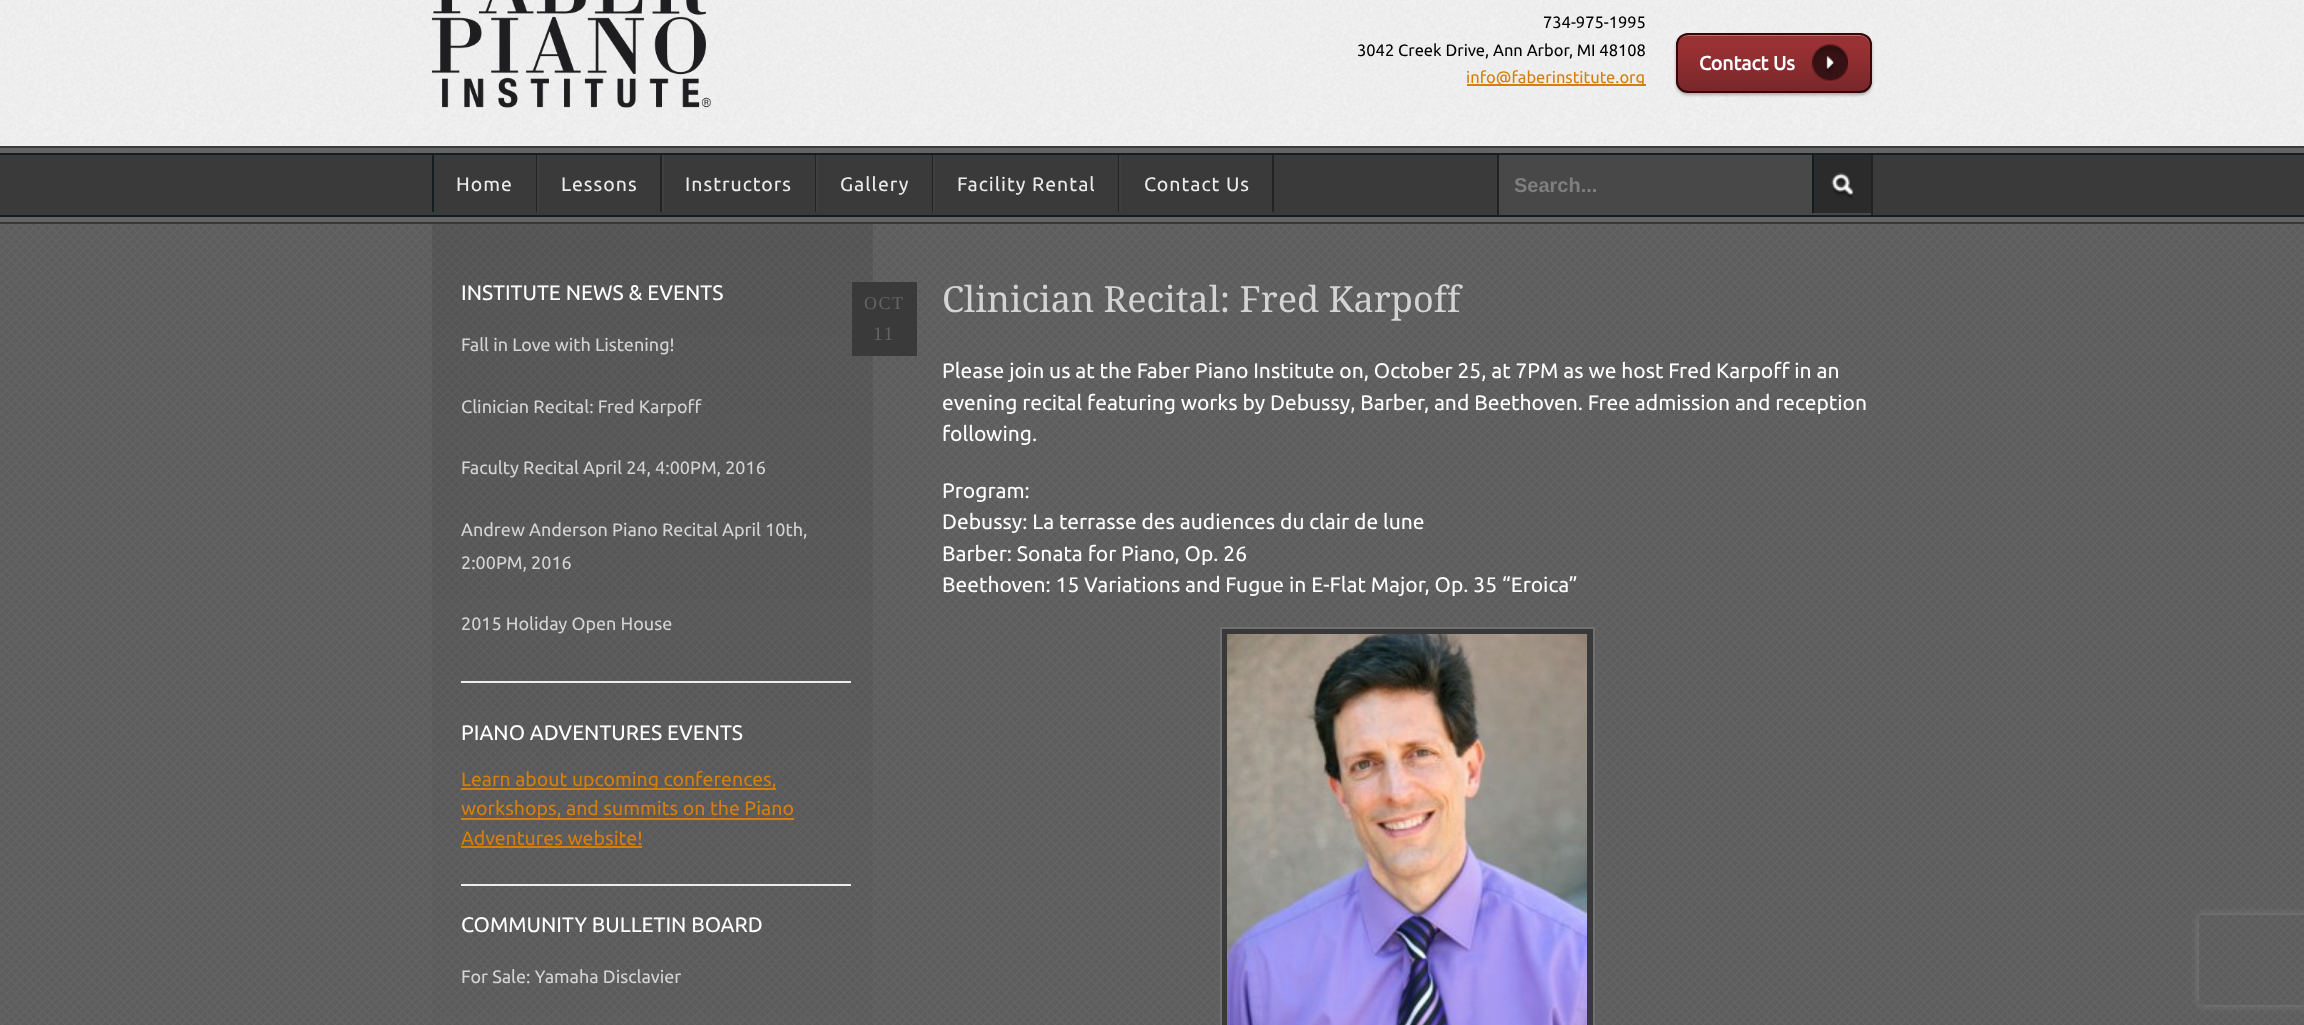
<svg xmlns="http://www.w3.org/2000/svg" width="2304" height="1025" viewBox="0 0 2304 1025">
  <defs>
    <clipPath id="clip1"><rect x="1676" y="33" width="196" height="60" rx="12"/></clipPath>
    <linearGradient id="g1" gradientUnits="userSpaceOnUse" x1="1677" y1="35" x2="1677" y2="92"><stop offset="0.2" stop-color="#9a3134"/><stop offset="1" stop-color="#772729"/></linearGradient>
    <clipPath id="clip2"><path d="M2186 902H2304V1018H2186ZM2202 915H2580C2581.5 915 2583 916.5 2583 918V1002C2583 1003.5 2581.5 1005 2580 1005H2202C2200.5 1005 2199 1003.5 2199 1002V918C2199 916.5 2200.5 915 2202 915Z" clip-rule="evenodd"/></clipPath>
  </defs>
  <rect width="100%" height="100%" fill="#fff"/>
  <image x="0" y="224" width="2304" height="801" href="img/1.png"/>
  <path d="M0 0h2304v146H0z" fill="#f1f1f1"/>
  <image x="0" y="0" width="2304" height="145" href="img/2.png"/>
  <image x="432" y="0" width="279" height="108" href="img/3.png"/>
  <path d="M1467 84h179v2H1467z" fill="#d47e0e"/>
  <rect x="1676" y="35" width="196" height="60" rx="12" fill="#0000004a" filter="blur(1.5px)"/>
  <g clip-path="url(#clip1)">
    <path d="M1676 35h196v57H1676z" fill="url(#g1)"/>
  </g>
  <path d="M1688 36H1860C1866 36 1870 41 1870 46V82C1870 84 1869 86 1868 88C1870 86 1871 84 1871 81V46C1871 40 1866 35 1860 35H1688C1682 35 1677 40 1677 46C1677 41 1682 36 1688 36Z" fill="#ffffff4d"/>
  <rect x="1677" y="34" width="194" height="58" rx="11" fill="none" stroke="#350708" stroke-width="2"/>
  <image x="1812" y="44" width="36" height="38" href="img/4.png"/>
  <path d="M0 148h2304v74H0z" fill="#646464"/>
  <path d="M0 146h2304v2H0z" fill="#3a3a3a"/>
  <path d="M0 222h2304v2H0z" fill="#373737"/>
  <path d="M0 155h2304v60H0z" fill="#3a3a3a"/>
  <path d="M0 153h2304v2H0z" fill="#131e23"/>
  <path d="M0 215h2304v2H0z" fill="#131e23"/>
  <path d="M536 155h1v57H536z" fill="#232323"/>
  <path d="M432 155h2v57H432z" fill="#131e23"/>
  <path d="M660 155h2v57H660z" fill="#232323"/>
  <path d="M537 155h2v57H537z" fill="#3f3f3f"/>
  <path d="M815 155h1v57H815z" fill="#232323"/>
  <path d="M662 155h2v57H662z" fill="#3f3f3f"/>
  <path d="M932 155h1v57H932z" fill="#232323"/>
  <path d="M816 155h2v57H816z" fill="#3f3f3f"/>
  <path d="M1118 155h1v57H1118z" fill="#232323"/>
  <path d="M933 155h2v57H933z" fill="#3f3f3f"/>
  <path d="M1272 155h2v57H1272z" fill="#232323"/>
  <path d="M1119 155h2v57H1119z" fill="#3f3f3f"/>
  <path d="M1499 155h372v60H1499z" fill="#484848"/>
  <path d="M1871 155h2v60H1871z" fill="#222"/>
  <path d="M1497 155h2v60H1497z" fill="#222"/>
  <path d="M1814 155h57v58H1814z" fill="#2b2b2b"/>
  <path d="M1812 155h2v58H1812z" fill="#121d22"/>
  <image x="1831" y="173" width="22" height="25" href="img/5.png"/>
  <path d="M461 681h390v2H461z" fill="#eee"/>
  <path d="M461 788h315v2H461z" fill="#d47e0e"/>
  <path d="M461 818h333v2H461z" fill="#d47e0e"/>
  <path d="M461 846h181v2H461z" fill="#d47e0e"/>
  <path d="M461 884h390v2H461z" fill="#eee"/>
  <path d="M852 282h65v74H852z" fill="#3a3a3a"/>
  <path d="M1221 628h373v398H1221z" fill="#393939" stroke="#707070" stroke-width="2"/>
  <image x="1227" y="634" width="360" height="391" href="img/6.png"/>
  <g clip-path="url(#clip2)">
    <rect x="2199" y="915" width="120" height="90" rx="3" fill="#808080" filter="blur(4px)"/>
  </g>
  <g font-family="Ubuntu" font-size="16.5" fill="#000">
    <text x="1543" y="28">734-975-1995</text>
    <text x="1357" y="56">3042 Creek Drive, Ann Arbor, MI 48108</text>
  </g>
  <text x="1466" y="83" font-family="Ubuntu" font-size="16.5" fill="#d47e0e">info@faberinstitute.org</text>
  <text x="1699" y="70" font-family="Ubuntu" font-size="19.5" font-weight="bold" fill="#fff">Contact Us</text>
  <g font-family="Ubuntu" font-size="19.5" letter-spacing="1" fill="#ebebeb">
    <text x="456" y="191">Home</text>
    <text x="561" y="191">Lessons</text>
    <text x="685" y="191">Instructors</text>
    <text x="840" y="191">Gallery</text>
    <text x="957" y="191">Facility Rental</text>
    <text x="1144" y="191">Contact Us</text>
  </g>
  <text x="1514" y="192" font-family="Liberation Sans" font-size="20" font-weight="bold" fill="#7f7f7f">Search...</text>
  <text x="461" y="300" font-family="Ubuntu" font-size="21" fill="#fff">INSTITUTE NEWS &amp; EVENTS</text>
  <g font-family="Ubuntu" font-size="18" fill="#d4d4d4">
    <text x="461" y="351">Fall in Love with Listening!</text>
    <text x="461" y="413">Clinician Recital: Fred Karpoff</text>
    <text x="461" y="474">Faculty Recital April 24, 4:00PM, 2016</text>
    <text x="461" y="536">Andrew Anderson Piano Recital April 10th,</text>
    <text x="461" y="569">2:00PM, 2016</text>
    <text x="461" y="630">2015 Holiday Open House</text>
  </g>
  <text x="461" y="740" font-family="Ubuntu" font-size="21" fill="#fff">PIANO ADVENTURES EVENTS</text>
  <g font-family="Ubuntu" font-size="19.5" fill="#d47e0e">
    <text x="461" y="786">Learn about upcoming conferences,</text>
    <text x="461" y="815">workshops, and summits on the Piano</text>
    <text x="461" y="845">Adventures website!</text>
  </g>
  <text x="461" y="932" font-family="Ubuntu" font-size="21" fill="#fff">COMMUNITY BULLETIN BOARD</text>
  <text x="461" y="983" font-family="Ubuntu" font-size="18" fill="#d4d4d4">For Sale: Yamaha Disclavier</text>
  <text x="864" y="309" font-family="Liberation Serif" font-size="18" letter-spacing="1.5" fill="#646464">OCT</text>
  <text x="873" y="340" font-family="Liberation Serif" font-size="19.5" letter-spacing="1.5" fill="#646464">11</text>
  <text x="942" y="312" font-family="Droid Serif" font-size="36" fill="#d4d4d4">Clinician Recital: Fred Karpoff</text>
  <g font-family="Ubuntu" font-size="21" fill="#fff">
    <text x="942" y="378">Please join us at the Faber Piano Institute on, October 25, at 7PM as we host Fred Karpoff in an</text>
    <text x="942" y="410">evening recital featuring works by Debussy, Barber, and Beethoven. Free admission and reception</text>
    <text x="942" y="441">following.</text>
    <text x="942" y="498">Program:</text>
    <text x="942" y="529">Debussy: La terrasse des audiences du clair de lune</text>
    <text x="942" y="561">Barber: Sonata for Piano, Op. 26</text>
    <text x="942" y="592">Beethoven: 15 Variations and Fugue in E-Flat Major, Op. 35 “Eroica”</text>
  </g>
</svg>
